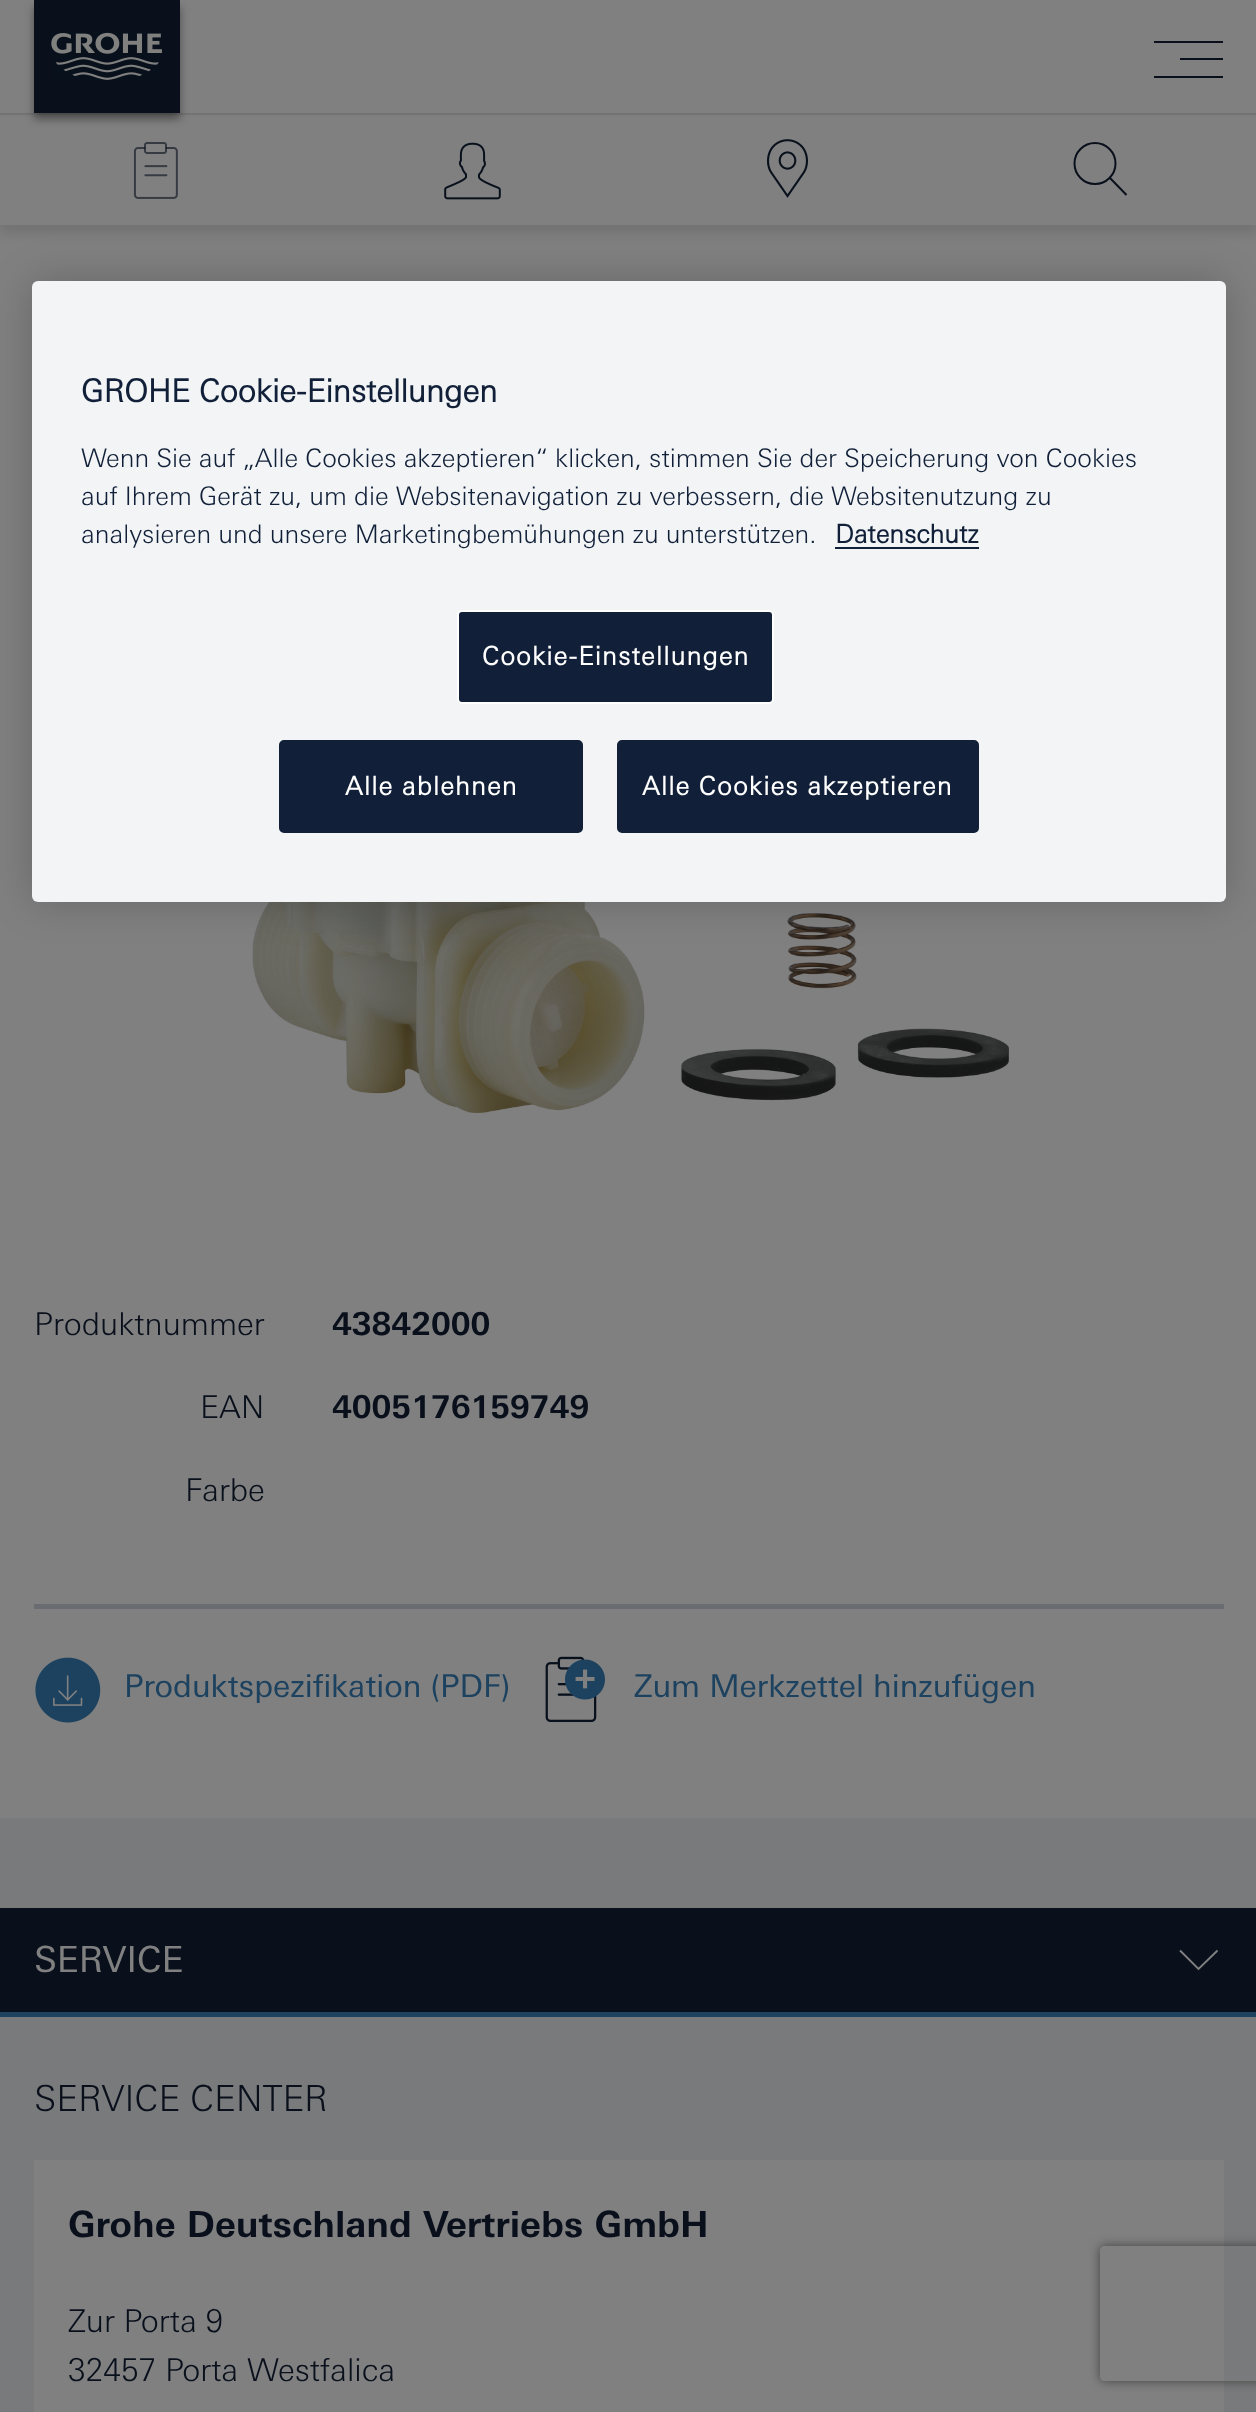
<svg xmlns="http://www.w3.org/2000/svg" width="1256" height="2412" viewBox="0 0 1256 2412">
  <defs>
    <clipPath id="clip1"><path d="M1154 41h70v38H1154z"/></clipPath>
    <clipPath id="clip2"><path d="M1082 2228H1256V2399H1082ZM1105 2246H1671C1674 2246 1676 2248 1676 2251V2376C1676 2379 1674 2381 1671 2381H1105C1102 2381 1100 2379 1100 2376V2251C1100 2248 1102 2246 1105 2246Z" clip-rule="evenodd"/></clipPath>
  </defs>
  <rect width="100%" height="100%" fill="#808080"/>
  <path d="M0 122h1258v112H0z" fill="#0000001a" filter="blur(5.5px)"/>
  <path d="M0 117h1256v108H0z" fill="#808080"/>
  <image x="252" y="902" width="757" height="211" href="img/5.png"/>
  <rect x="32" y="281" width="1194" height="621" rx="6" fill="#00000033" filter="blur(20px)"/>
  <rect x="32" y="281" width="1194" height="621" rx="6" fill="#f2f4f6"/>
  <path d="M835 547h144v2H835z" fill="#112038"/>
  <rect x="458" y="611" width="315" height="92" rx="4" fill="#112038" stroke="#fff" stroke-width="2"/>
  <rect x="280" y="741" width="302" height="91" rx="4" fill="#112038" stroke="#112038" stroke-width="2"/>
  <rect x="618" y="741" width="360" height="91" rx="4" fill="#112038" stroke="#112038" stroke-width="2"/>
  <path d="M0 113h1256v2H0z" fill="#737373"/>
  <path d="M34 7h146v112H34z" fill="#00000066" filter="blur(4.5px)"/>
  <path d="M34 0h146v113H34z" fill="#09101c"/>
  <image x="51" y="32" width="111" height="48" href="img/1.png"/>
  <g clip-path="url(#clip1)">
    <path d="M1154 40H1223V43H1154ZM1180 58H1223V60H1180ZM1154 76H1223V78H1154Z" fill="#09101c"/>
  </g>
  <image x="133" y="142" width="45" height="57" href="img/2.png"/>
  <image x="444" y="142" width="57" height="58" href="img/3.png"/>
  <image x="766" y="139" width="42" height="59" href="img/4.png"/>
  <path d="M1126.5 195L1109.5 177.5Z" fill="none" stroke="#09101c" stroke-width="2"/>
  <circle cx="1095" cy="163.5" r="20.5" fill="none" stroke="#09101c" stroke-width="2"/>
  <path d="M34 1604h1190v5H34z" fill="#696c70"/>
  <image x="35" y="1657" width="66" height="66" href="img/6.png"/>
  <image x="545" y="1656" width="60" height="66" href="img/7.png"/>
  <path d="M0 1818h1256v594H0z" fill="#797a7b"/>
  <path d="M0 1908h1256v104H0z" fill="#09101c"/>
  <path d="M0 2012h1256v5H0z" fill="#1d425f"/>
  <path d="M1217.5 1950.5L1198.5 1969L1180 1950.5" fill="none" stroke="#808080" stroke-width="1.9"/>
  <path d="M34 2160h1190v252H34z" fill="#808080"/>
  <g clip-path="url(#clip2)">
    <rect x="1100" y="2246" width="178" height="135" rx="5" fill="#404040" filter="blur(5.5px)"/>
  </g>
  <text x="81" y="402" font-family="'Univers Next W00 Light'" font-size="31.5" font-weight="bold" fill="#112038">GROHE Cookie-Einstellungen</text>
  <g font-family="'Univers Next W00 Light'" font-size="25.6" font-weight="300" fill="#112038">
    <text x="81" y="467">Wenn Sie auf „Alle Cookies akzeptieren“ klicken, stimmen Sie der Speicherung von Cookies</text>
    <text x="81" y="505">auf Ihrem Gerät zu, um die Websitenavigation zu verbessern, die Websitenutzung zu</text>
    <text x="81" y="543">analysieren und unsere Marketingbemühungen zu unterstützen.</text>
  </g>
  <text x="835" y="543" font-family="'Univers Next W00 Light'" font-size="25.6" font-weight="bold" fill="#112038">Datenschutz</text>
  <g font-family="'Univers Next W00 Light'" font-size="25.6" font-weight="bold" letter-spacing="1.25" fill="#fff">
    <text x="482" y="665">Cookie-Einstellungen</text>
    <text x="345" y="795">Alle ablehnen</text>
    <text x="642" y="795">Alle Cookies akzeptieren</text>
  </g>
  <text x="34" y="1335" font-family="'Univers Next W00 Light'" font-size="31.5" font-weight="300" fill="#09101c">Produktnummer</text>
  <text x="332" y="1335" font-family="'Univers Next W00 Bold'" font-size="31.5" font-weight="bold" fill="#09101c">43842000</text>
  <text x="200" y="1418" font-family="'Univers Next W00 Light'" font-size="31.5" font-weight="300" fill="#09101c">EAN</text>
  <text x="332" y="1418" font-family="'Univers Next W00 Bold'" font-size="31.5" font-weight="bold" fill="#09101c">4005176159749</text>
  <text x="185" y="1501" font-family="'Univers Next W00 Light'" font-size="31.5" font-weight="300" fill="#09101c">Farbe</text>
  <g font-family="'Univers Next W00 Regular'" font-size="31.5" fill="#1d425f">
    <text x="124" y="1697">Produktspezifikation (PDF)</text>
    <text x="634" y="1697">Zum Merkzettel hinzufügen</text>
  </g>
  <text x="34" y="1972" font-family="'Univers Next W00 Regular'" font-size="36" fill="#808080">SERVICE</text>
  <text x="34" y="2111" font-family="'Univers Next W00 Light'" font-size="36" font-weight="300" fill="#09101c">SERVICE CENTER</text>
  <text x="68" y="2237" font-family="'Univers Next W00 Bold'" font-size="36" font-weight="bold" fill="#09101c">Grohe Deutschland Vertriebs GmbH</text>
  <g font-family="'Univers Next W00 Light'" font-size="31.5" font-weight="300" fill="#09101c">
    <text x="68" y="2332">Zur Porta 9</text>
    <text x="68" y="2381">32457 Porta Westfalica</text>
  </g>
</svg>
